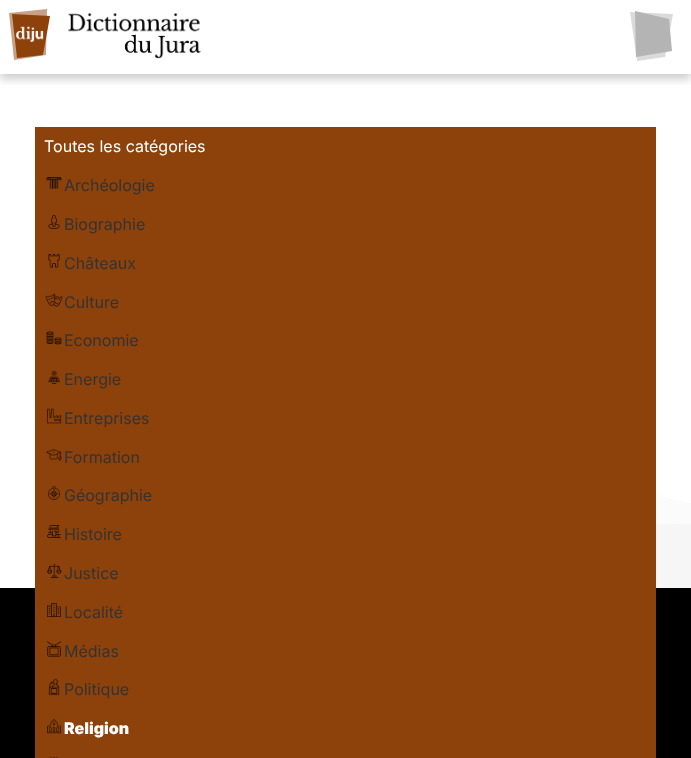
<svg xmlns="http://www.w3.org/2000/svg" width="691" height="758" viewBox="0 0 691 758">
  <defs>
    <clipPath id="clip1"><path d="M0 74h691v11H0z"/></clipPath>
  </defs>
  <rect width="100%" height="100%" fill="#fff"/>
  <g clip-path="url(#clip1)">
    <path d="M0 -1h691v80H0z" fill="#00000033" filter="blur(5px)"/>
  </g>
  <path d="M9 13L47 9L46 55L14 60Z" fill="#c7a185" fill-rule="evenodd"/>
  <path d="M12 14L50 16L43 55L17 58Z" fill="#8e420b" fill-rule="evenodd"/>
  <image x="16" y="26" width="28" height="16" href="img/1.png"/>
  <image x="68" y="13" width="133" height="46" href="img/2.png"/>
  <path d="M630 12L673 14L665 57L637 61Z" fill="#dadada" fill-rule="evenodd"/>
  <path d="M635 11L669 19L672 51L636 57Z" fill="#b4b4b4" fill-rule="evenodd"/>
  <path d="M575 476L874 546L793 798L563 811Z" fill="#ebebeb33" fill-rule="evenodd"/>
  <path d="M546 525V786L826 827L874 523Z" fill="#ebebeb4d" fill-rule="evenodd"/>
  <path d="M0 588h691v170H0z" fill="#000"/>
  <path d="M35 127h621v631H35z" fill="#8e420b"/>
  <image x="46" y="177" width="16" height="12" href="img/3.png"/>
  <image x="48" y="215" width="12" height="14" href="img/4.png"/>
  <image x="48" y="254" width="12" height="14" href="img/5.png"/>
  <image x="45" y="293" width="18" height="14" href="img/6.png"/>
  <image x="46" y="331" width="16" height="14" href="img/7.png"/>
  <image x="48" y="370" width="12" height="14" href="img/8.png"/>
  <image x="46" y="408" width="16" height="16" href="img/9.png"/>
  <image x="46" y="449" width="16" height="12" href="img/10.png"/>
  <image x="48" y="486" width="12" height="14" href="img/11.png"/>
  <image x="47" y="525" width="14" height="13" href="img/12.png"/>
  <image x="47" y="564" width="15" height="15" href="img/13.png"/>
  <image x="47" y="603" width="14" height="14" href="img/14.png"/>
  <image x="46" y="641" width="16" height="16" href="img/15.png"/>
  <image x="48" y="678" width="12" height="18" href="img/16.png"/>
  <image x="47" y="719" width="14" height="15" href="img/17.png"/>
  <image x="50" y="757" width="8" height="1" href="img/18.png"/>
  <text x="44" y="152" font-family="Inter" font-size="16" fill="#fff">Toutes les catégories</text>
  <g font-family="Inter" font-size="16" fill="#333">
    <text x="64" y="191">Archéologie</text>
    <text x="64" y="230">Biographie</text>
    <text x="64" y="269">Châteaux</text>
    <text x="64" y="308">Culture</text>
    <text x="64" y="346">Economie</text>
    <text x="64" y="385">Energie</text>
    <text x="64" y="424">Entreprises</text>
    <text x="64" y="463">Formation</text>
    <text x="64" y="501">Géographie</text>
    <text x="64" y="540">Histoire</text>
    <text x="64" y="579">Justice</text>
    <text x="64" y="618">Localité</text>
    <text x="64" y="657">Médias</text>
    <text x="64" y="695">Politique</text>
  </g>
  <text x="64" y="734" font-family="Inter" font-size="16" font-weight="900" fill="#fff">Religion</text>
</svg>
